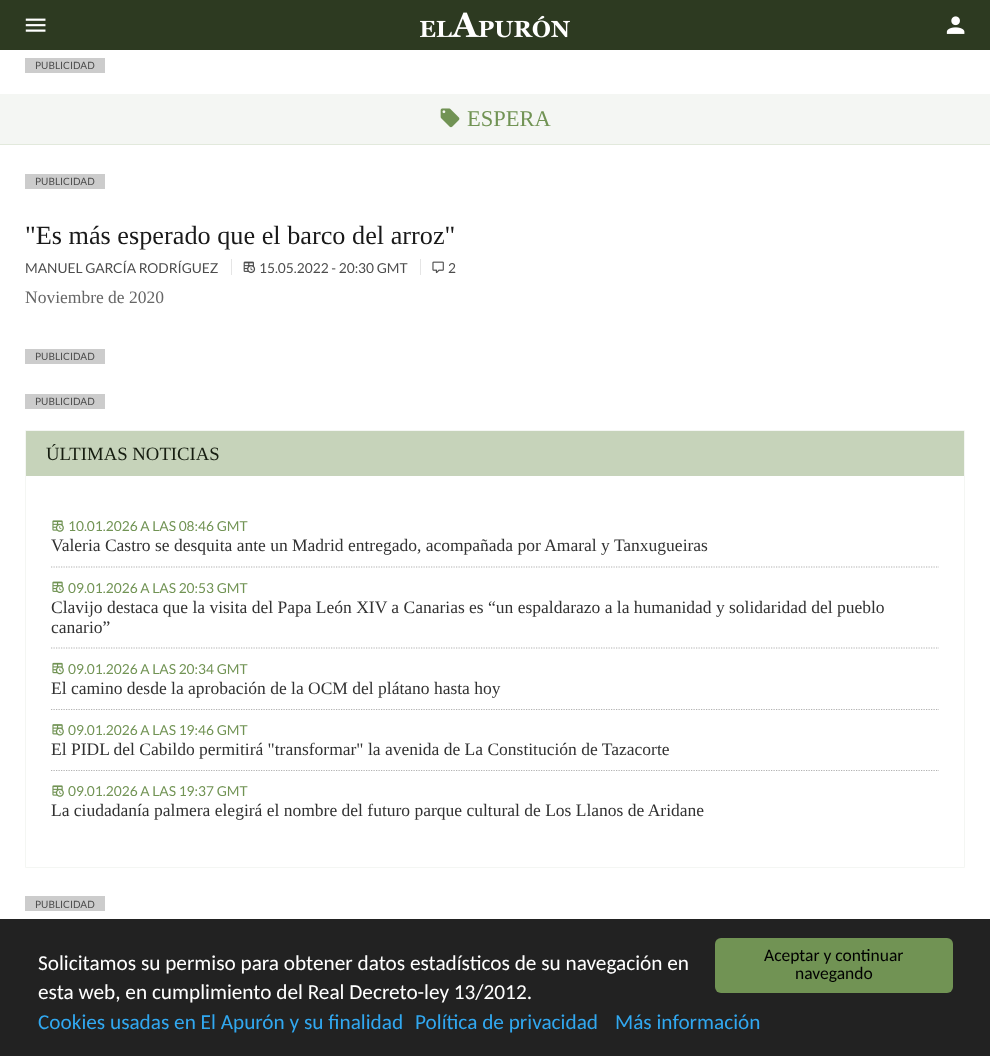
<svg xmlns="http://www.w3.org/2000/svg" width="990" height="1056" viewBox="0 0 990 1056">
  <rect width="100%" height="100%" fill="#fff"/>
  <path d="M0 0h990v50H0z" fill="#2d3a21"/>
  <image x="25" y="18" width="21" height="14" href="img/1.png"/>
  <image x="420" y="12" width="150" height="26" href="img/2.png"/>
  <image x="946" y="16" width="19" height="18" href="img/3.png"/>
  <path d="M25 58h80v15H25z" fill="#ccc"/>
  <path d="M0 94h990v50H0z" fill="#f4f6f3"/>
  <path d="M0 144h990v1H0z" fill="#e2e9dc"/>
  <image x="440" y="108" width="20" height="20" href="img/4.png"/>
  <path d="M25 174h80v15H25z" fill="#ccc"/>
  <path d="M231 259h1v16H231z" fill="#e5e5e5"/>
  <image x="243" y="261" width="13" height="13" href="img/5.png"/>
  <path d="M420 259h1v16H420z" fill="#e5e5e5"/>
  <image x="432" y="261" width="12" height="13" href="img/6.png"/>
  <path d="M25 349h80v15H25z" fill="#ccc"/>
  <path d="M25 394h80v15H25z" fill="#ccc"/>
  <path d="M25.5 430.5h939v437H25.5z" fill="none" stroke="#f4f6f3"/>
  <path d="M26 431h938v45H26z" fill="#c6d3ba"/>
  <path d="M51 567H939" fill="none" stroke="#b2b2b2" stroke-width="1.2" stroke-dasharray="1.25 1.25"/>
  <image x="52" y="520" width="12" height="12" href="img/7.png"/>
  <path d="M51 648H939" fill="none" stroke="#b2b2b2" stroke-width="1.2" stroke-dasharray="1.25 1.25"/>
  <image x="52" y="581" width="12" height="13" href="img/8.png"/>
  <path d="M51 709.5H939" fill="none" stroke="#b2b2b2" stroke-width="1.2" stroke-dasharray="1.25 1.25"/>
  <image x="52" y="662" width="12" height="13" href="img/9.png"/>
  <path d="M51 770.5H939" fill="none" stroke="#b2b2b2" stroke-width="1.2" stroke-dasharray="1.25 1.25"/>
  <image x="52" y="724" width="12" height="12" href="img/10.png"/>
  <image x="52" y="785" width="12" height="12" href="img/7.png"/>
  <path d="M25 896h80v15H25z" fill="#ccc"/>
  <path d="M0 919h990v137H0z" fill="#222"/>
  <rect x="715" y="938" width="238" height="55" rx="6" fill="#719354"/>
  <text x="35" y="69" font-family="Lato" font-size="10" fill="#4c4c4c">PUBLICIDAD</text>
  <text x="467" y="126" font-family="Liberation Serif" font-size="22.5" fill="#719354">ESPERA</text>
  <text x="35" y="185" font-family="Lato" font-size="10" fill="#4c4c4c">PUBLICIDAD</text>
  <text x="25" y="244" font-family="Liberation Serif" font-size="26.25" fill="#191919">"Es más esperado que el barco del arroz"</text>
  <g font-family="Lato" font-size="13.75" fill="#4c4c4c">
    <text x="25" y="273">MANUEL GARCÍA RODRÍGUEZ</text>
    <text x="259" y="273">15.05.2022 - 20:30 GMT</text>
    <text x="448" y="273">2</text>
  </g>
  <text x="25" y="303" font-family="Liberation Serif" font-size="17.5" fill="#666">Noviembre de 2020</text>
  <g font-family="Lato" font-size="10" fill="#4c4c4c">
    <text x="35" y="360">PUBLICIDAD</text>
    <text x="35" y="405">PUBLICIDAD</text>
  </g>
  <text x="46" y="460" font-family="Liberation Serif" font-size="18.75" fill="#161d10">ÚLTIMAS NOTICIAS</text>
  <text x="68" y="531" font-family="Lato" font-size="13.75" fill="#719354">10.01.2026 A LAS 08:46 GMT</text>
  <text x="51" y="551" font-family="Liberation Serif" font-size="17.5" fill="#323232">Valeria Castro se desquita ante un Madrid entregado, acompañada por Amaral y Tanxugueiras</text>
  <text x="68" y="593" font-family="Lato" font-size="13.75" fill="#719354">09.01.2026 A LAS 20:53 GMT</text>
  <g font-family="Liberation Serif" font-size="17.5" fill="#323232">
    <text x="51" y="613">Clavijo destaca que la visita del Papa León XIV a Canarias es “un espaldarazo a la humanidad y solidaridad del pueblo</text>
    <text x="51" y="633">canario”</text>
  </g>
  <text x="68" y="674" font-family="Lato" font-size="13.75" fill="#719354">09.01.2026 A LAS 20:34 GMT</text>
  <text x="51" y="694" font-family="Liberation Serif" font-size="17.5" fill="#323232">El camino desde la aprobación de la OCM del plátano hasta hoy</text>
  <text x="68" y="735" font-family="Lato" font-size="13.75" fill="#719354">09.01.2026 A LAS 19:46 GMT</text>
  <text x="51" y="755" font-family="Liberation Serif" font-size="17.5" fill="#323232">El PIDL del Cabildo permitirá "transformar" la avenida de La Constitución de Tazacorte</text>
  <text x="68" y="796" font-family="Lato" font-size="13.75" fill="#719354">09.01.2026 A LAS 19:37 GMT</text>
  <text x="51" y="816" font-family="Liberation Serif" font-size="17.5" fill="#323232">La ciudadanía palmera elegirá el nombre del futuro parque cultural de Los Llanos de Aridane</text>
  <text x="35" y="908" font-family="Lato" font-size="10" fill="#4c4c4c">PUBLICIDAD</text>
  <g font-family="Carlito" font-size="21.25" fill="#fff">
    <text x="38" y="970">Solicitamos su permiso para obtener datos estadísticos de su navegación en</text>
    <text x="38" y="999">esta web, en cumplimiento del Real Decreto-ley 13/2012.</text>
  </g>
  <g font-family="Carlito" font-size="21.25" fill="#31a8f0">
    <text x="38" y="1029">Cookies usadas en El Apurón y su finalidad</text>
    <text x="415" y="1029">Política de privacidad</text>
    <text x="615" y="1029">Más información</text>
  </g>
  <g font-family="Carlito" font-size="17.5" fill="#000">
    <text x="764" y="961">Aceptar y continuar</text>
    <text x="795" y="979">navegando</text>
  </g>
</svg>
